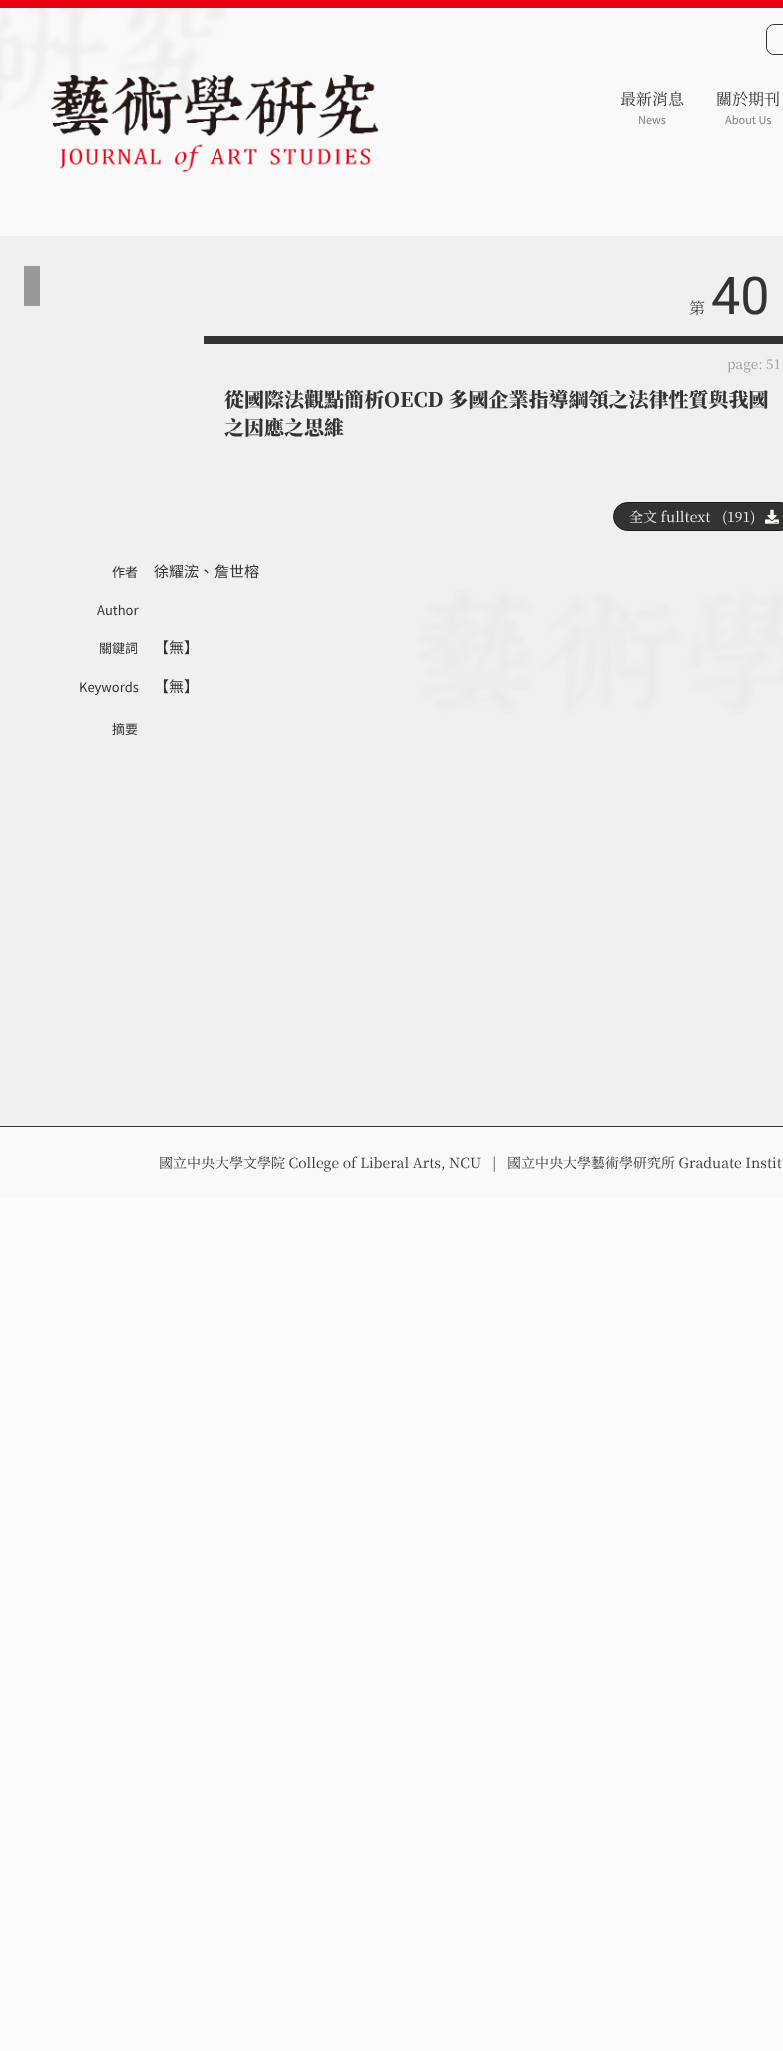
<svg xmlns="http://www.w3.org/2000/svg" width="783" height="2051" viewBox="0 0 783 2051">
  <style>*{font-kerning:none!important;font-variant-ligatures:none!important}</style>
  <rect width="100%" height="100%" fill="#fcfcfc"/>
  <path d="M0 8h783v1190H0z" fill="#f9f9f9"/>
  <path d="M0 236h783v890H0z" fill="#f0f0f0"/>
  <image x="0" y="8" width="234" height="104" href="img/1.png"/>
  <image x="417" y="590" width="366" height="125" href="img/2.png"/>
  <path d="M0 0h783v8H0z" fill="#e60012"/>
  <image x="51" y="74" width="328" height="98" href="img/3.png"/>
  <path d="M774 24.5H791.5V54.5H774C770 54.5 766.5 51 766.5 47V32C766.5 28 770 24.5 774 24.5Z" fill="none" stroke="#333"/>
  <path d="M24 266h16v40H24z" fill="#999"/>
  <path d="M204 336h579v8H204z" fill="#333"/>
  <rect x="613.5" y="502.5" width="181" height="28" rx="14" fill="#333" stroke="#1a1a1a"/>
  <image x="765" y="509" width="14" height="15" href="img/4.png"/>
  <path d="M0 1126h783v1H0z" fill="#333"/>
  <text x="620" y="105" font-family="Noto Serif TC" font-size="16" fill="#333">最新消息</text>
  <text x="638" y="124" font-family="Noto Sans TC" font-size="11" fill="#828282">News</text>
  <text x="716" y="105" font-family="Noto Serif TC" font-size="16" fill="#333">關於期刊</text>
  <text x="725" y="124" font-family="Noto Sans TC" font-size="11" fill="#828282">About Us</text>
  <text x="689" y="314" font-family="Noto Serif TC" font-size="16" font-weight="300" fill="#333">第</text>
  <text x="711" y="314" font-family="Roboto" font-size="52" fill="#333">40</text>
  <text x="727" y="369" font-family="Noto Serif TC" font-size="13.5" fill="#999">page: 51</text>
  <g font-family="Noto Serif TC" font-size="20" font-weight="900" fill="#333">
    <text x="224" y="407">從國際法觀點簡析OECD 多國企業指導綱領之法律性質與我國</text>
    <text x="224" y="435">之因應之思維</text>
  </g>
  <g font-family="Noto Serif TC" font-size="14" fill="#faf6f2">
    <text x="629" y="522">全文 fulltext</text>
    <text x="722" y="522">(191)</text>
  </g>
  <text x="112" y="577" font-family="Noto Sans TC" font-size="13" fill="#333">作者</text>
  <text x="154" y="577" font-family="Noto Sans TC" font-size="15" fill="#333">徐耀浤、詹世榕</text>
  <g font-family="Noto Sans TC" font-size="13" fill="#333">
    <text x="97" y="615">Author</text>
    <text x="99" y="653">關鍵詞</text>
  </g>
  <text x="154" y="653" font-family="Noto Sans TC" font-size="15" fill="#333">【無】</text>
  <text x="79" y="692" font-family="Noto Sans TC" font-size="13" fill="#333">Keywords</text>
  <text x="154" y="692" font-family="Noto Sans TC" font-size="15" fill="#333">【無】</text>
  <text x="112" y="734" font-family="Noto Sans TC" font-size="13" fill="#333">摘要</text>
  <g font-family="Noto Serif TC" font-size="14" fill="#333">
    <text x="159" y="1168">國立中央大學文學院 College of Liberal Arts, NCU</text>
    <text x="492" y="1168">|</text>
    <text x="507" y="1168">國立中央大學藝術學研究所 Graduate Instit</text>
  </g>
</svg>
